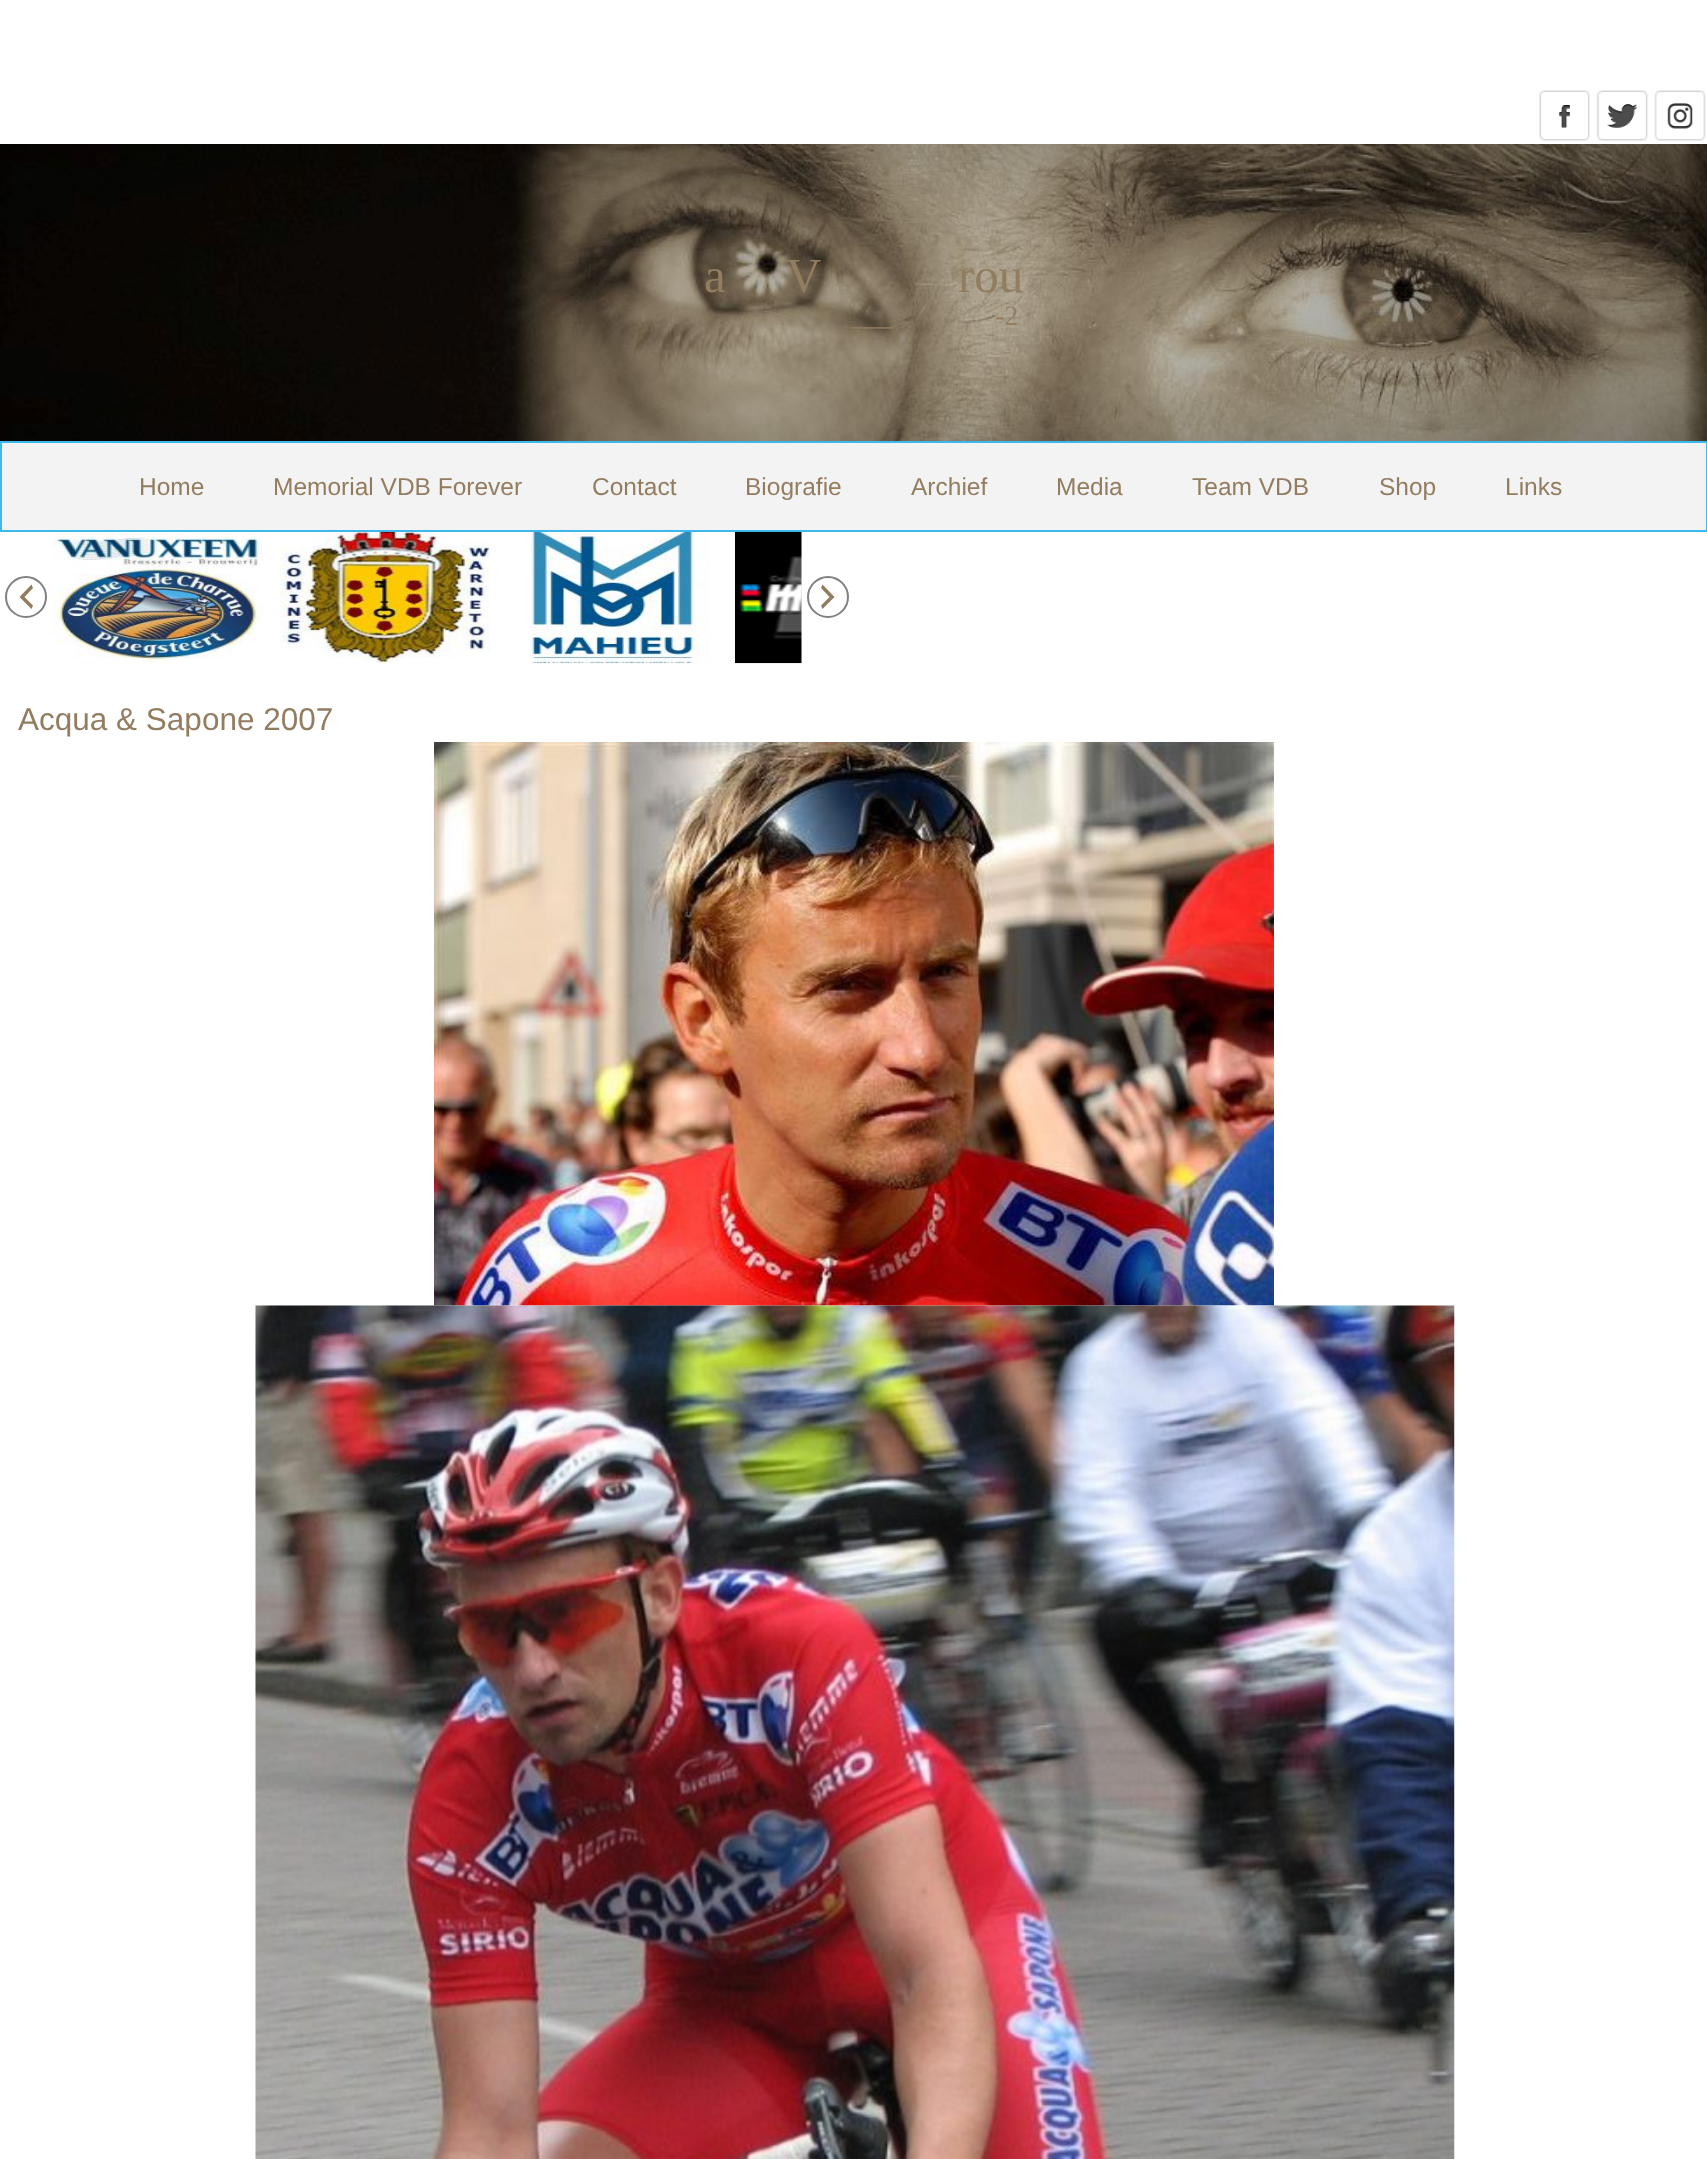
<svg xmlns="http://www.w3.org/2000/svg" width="1707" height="2159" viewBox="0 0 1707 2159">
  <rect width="100%" height="100%" fill="#fff"/>
  <image x="1539" y="90" width="51" height="51" href="img/1.png"/>
  <image x="1596" y="90" width="52" height="51" href="img/2.png"/>
  <image x="1654" y="90" width="52" height="51" href="img/3.png"/>
  <image x="0" y="144" width="1707" height="297" href="img/4.png"/>
  <path d="M1 442h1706v89H1z" fill="#f3f3f3" stroke="#3cb8ec" stroke-width="2"/>
  <circle cx="26" cy="597" r="20" fill="none" stroke="#808080" stroke-width="2"/>
  <path d="M33 588L24.5 597L33 605.5L31.5 609L19.5 597L31.5 584.5Z" fill="#937d60"/>
  <image x="53" y="532" width="210" height="130" href="img/5.png"/>
  <image x="280" y="532" width="210" height="131" href="img/6.png"/>
  <image x="529" y="532" width="181" height="132" href="img/7.png"/>
  <image x="735" y="532" width="67" height="132" href="img/8.png"/>
  <circle cx="828" cy="597" r="20" fill="none" stroke="#808080" stroke-width="2"/>
  <path d="M821 605.5L829.5 597L821 588L822.5 584.5L834.5 597L822.5 609Z" fill="#937d60"/>
  <image x="434" y="742" width="840" height="564" href="img/9.png"/>
  <image x="255" y="1305" width="1200" height="854" href="img/10.png"/>
  <g font-family="Liberation Serif" font-size="49" fill="#937d60">
    <text x="704" y="292">a</text>
    <text x="786" y="292">V</text>
    <text x="958" y="292">rou</text>
  </g>
  <g font-family="Liberation Serif" font-size="28" fill="#937d60">
    <text x="995" y="325">-2</text>
    <text x="851" y="325">___</text>
  </g>
  <g font-family="Liberation Sans" font-size="24.5" fill="#937d60">
    <text x="139" y="495">Home</text>
    <text x="273" y="495">Memorial VDB Forever</text>
    <text x="592" y="495">Contact</text>
    <text x="745" y="495">Biografie</text>
    <text x="911" y="495">Archief</text>
    <text x="1056" y="495">Media</text>
    <text x="1192" y="495">Team VDB</text>
    <text x="1379" y="495">Shop</text>
    <text x="1505" y="495">Links</text>
  </g>
  <text x="18" y="730" font-family="Liberation Sans" font-size="31.5" fill="#937d60">Acqua &amp; Sapone 2007</text>
</svg>
